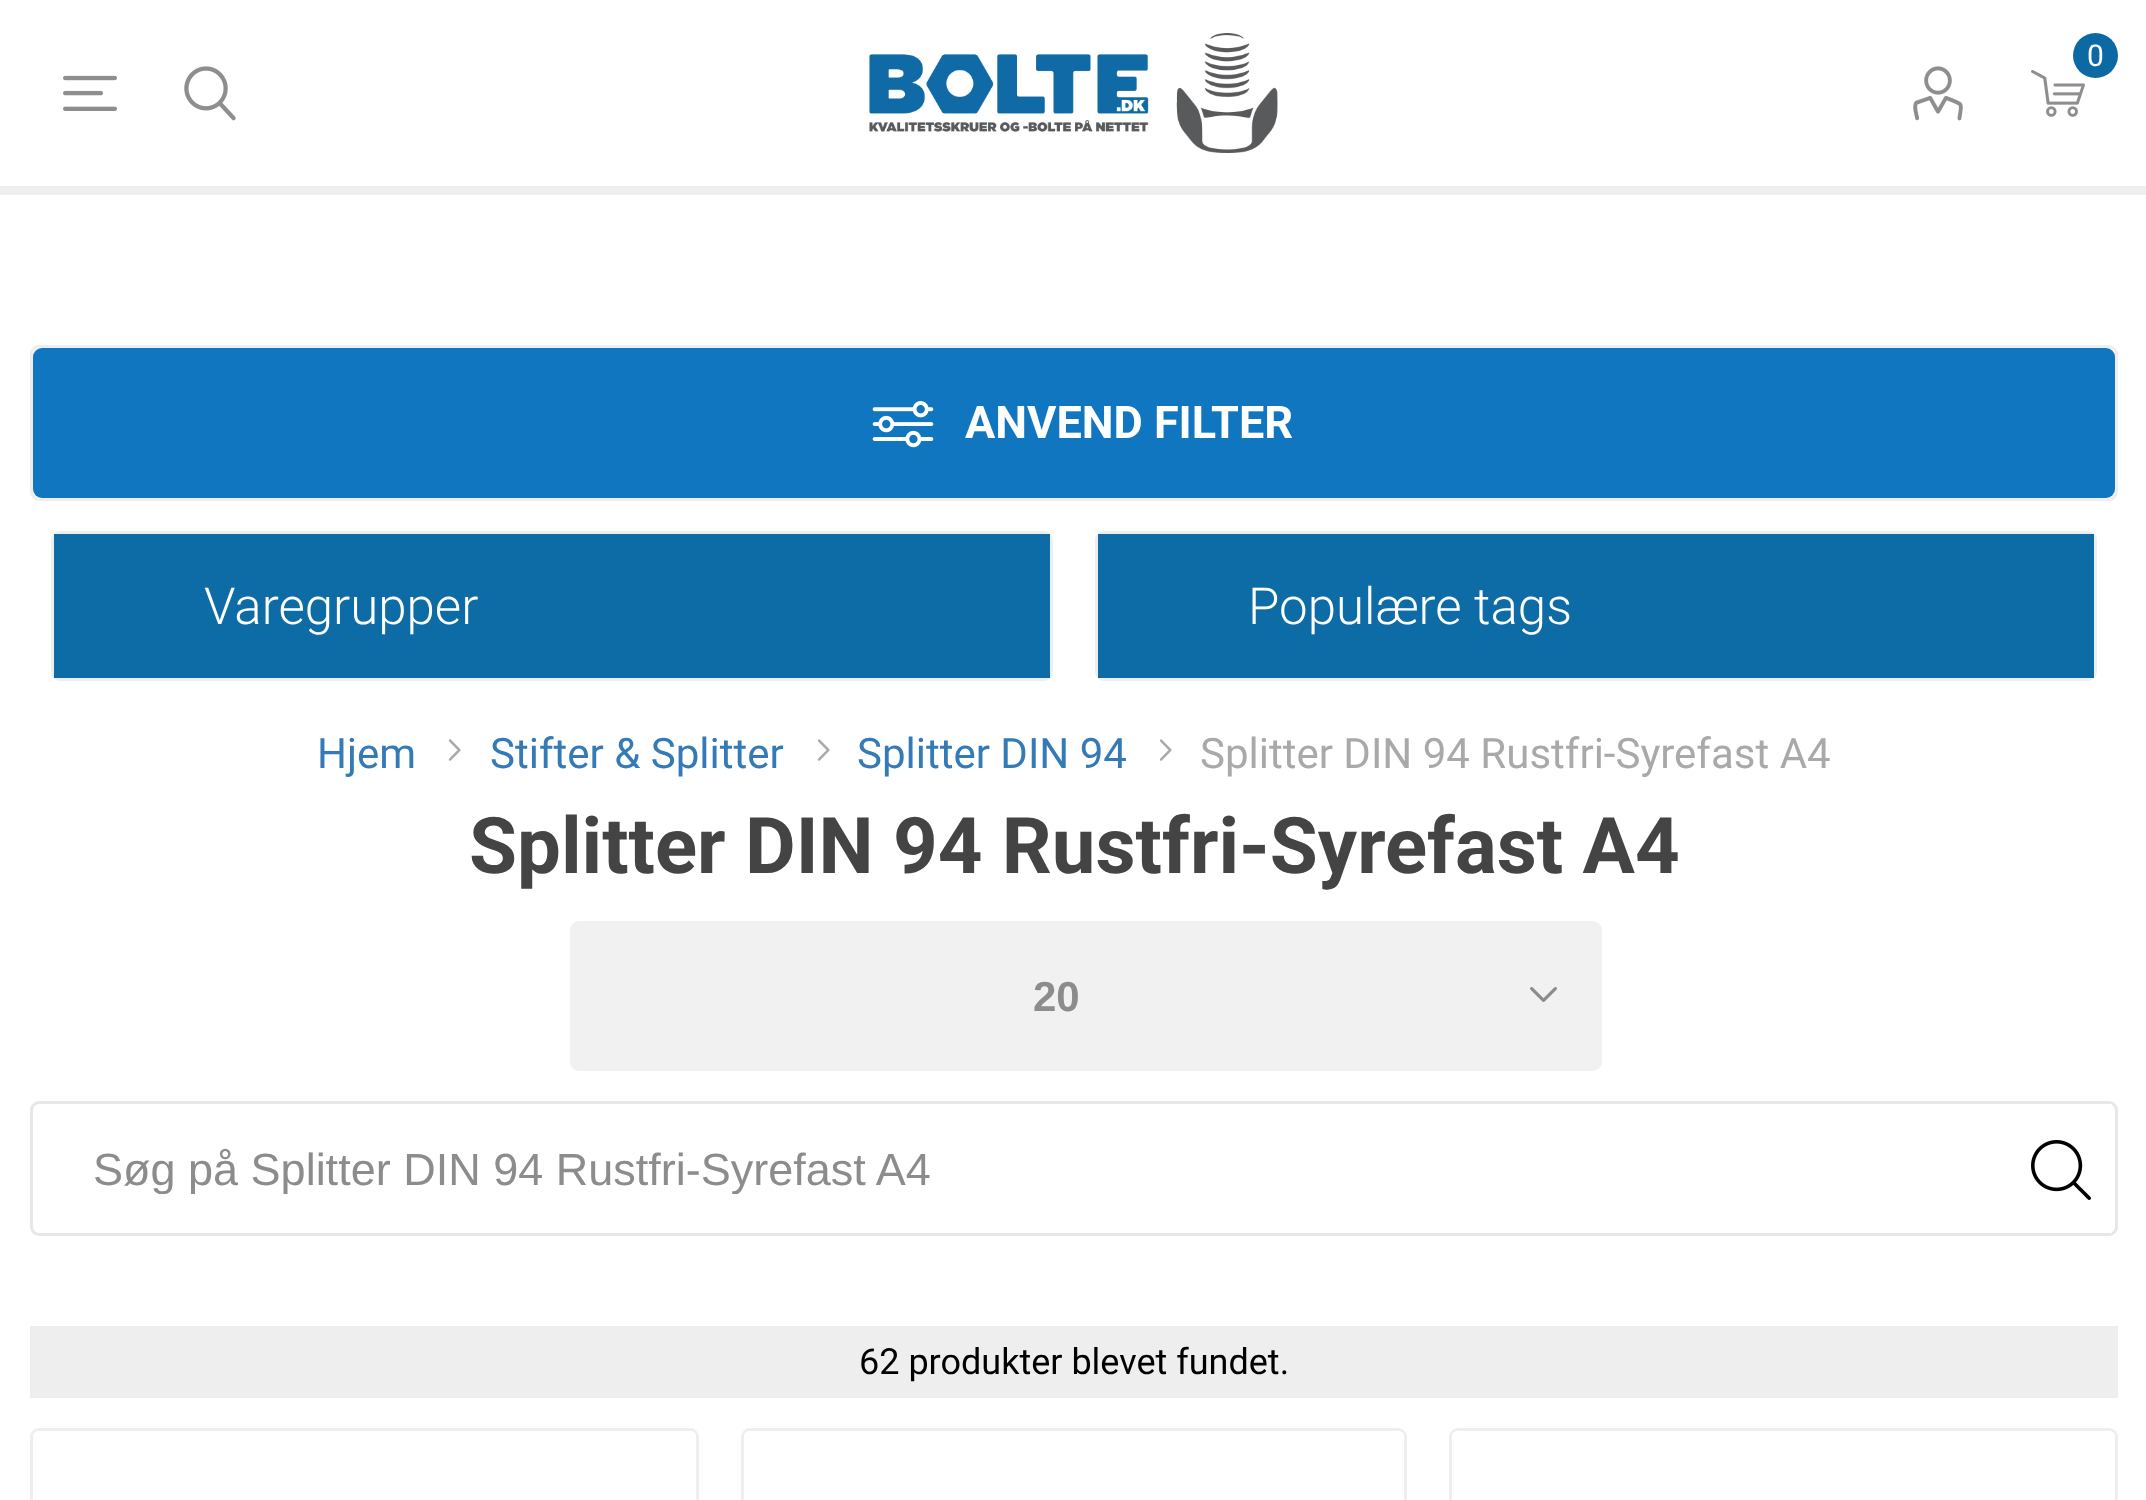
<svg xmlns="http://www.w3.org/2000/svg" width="2146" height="1500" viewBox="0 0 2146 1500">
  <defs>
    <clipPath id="clip1"><path d="M93 1143h1962v51H93z"/></clipPath>
  </defs>
  <rect width="100%" height="100%" fill="#fff"/>
  <path d="M0 186h2146v9H0z" fill="#eee"/>
  <image x="869" y="33" width="409" height="120" href="img/1.png"/>
  <image x="2031" y="70" width="54" height="47" href="img/2.png"/>
  <circle cx="2095.5" cy="55.5" r="22.5" fill="#0d69a4"/>
  <image x="63" y="75" width="54" height="36" href="img/3.png"/>
  <image x="184" y="66" width="52" height="55" href="img/4.png"/>
  <image x="1913" y="66" width="50" height="55" href="img/5.png"/>
  <rect x="31.5" y="346.5" width="2085" height="153" rx="7.5" fill="#f6f6f6" stroke="#eee" stroke-width="3"/>
  <rect x="33" y="348" width="2082" height="150" rx="9" fill="#1076c0"/>
  <image x="872" y="401" width="62" height="47" href="img/6.png"/>
  <rect x="52.5" y="532.5" width="999" height="147" rx="7.5" fill="none" stroke="#eee" stroke-width="3"/>
  <path d="M54 534h996v144H54z" fill="#0d6ca6"/>
  <rect x="1096.5" y="532.5" width="999" height="147" rx="7.5" fill="none" stroke="#eee" stroke-width="3"/>
  <path d="M1098 534h996v144H1098z" fill="#0d6ca6"/>
  <image x="448" y="739" width="13" height="22" href="img/7.png"/>
  <image x="817" y="739" width="13" height="22" href="img/7.png"/>
  <image x="1159" y="739" width="13" height="22" href="img/7.png"/>
  <rect x="570" y="921" width="1032" height="150" rx="9" fill="#f1f1f1"/>
  <image x="1530" y="987" width="27" height="15" href="img/8.png"/>
  <rect x="31.5" y="1102.5" width="2085" height="132" rx="7.5" fill="none" stroke="#e7e7e7" stroke-width="3"/>
  <path d="M2110 1104h2v129H2110z" fill="#fff"/>
  <image x="2031" y="1140" width="60" height="60" href="img/9.png"/>
  <path d="M30 1326h2088v72H30z" fill="#eee"/>
  <rect x="31.5" y="1429.5" width="666" height="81" rx="7.5" fill="none" stroke="#eee" stroke-width="3"/>
  <path d="M39 1431H690C693.5 1431 696 1433.5 696 1437V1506H33V1437C33 1433.5 35.5 1431 39 1431Z" fill="#fff"/>
  <rect x="742.5" y="1429.5" width="663" height="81" rx="7.5" fill="none" stroke="#eee" stroke-width="3"/>
  <path d="M750 1431H1398C1401.5 1431 1404 1433.5 1404 1437V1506H744V1437C744 1433.5 746.5 1431 750 1431Z" fill="#fff"/>
  <rect x="1450.5" y="1429.5" width="666" height="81" rx="7.5" fill="none" stroke="#eee" stroke-width="3"/>
  <path d="M1458 1431H2109C2112.5 1431 2115 1433.5 2115 1437V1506H1452V1437C1452 1433.5 1454.5 1431 1458 1431Z" fill="#fff"/>
  <text x="2087" y="66" font-family="Roboto" font-size="30" fill="#fff">0</text>
  <text x="965" y="438" font-family="Roboto" font-size="45" font-weight="bold" fill="#fff">ANVEND FILTER</text>
  <g font-family="Roboto" font-size="51" font-weight="300" fill="#fff">
    <text x="204" y="624">Varegrupper</text>
    <text x="1248" y="624">Populære tags</text>
  </g>
  <g font-family="Roboto" font-size="42" fill="#337ab7">
    <text x="317" y="768">Hjem</text>
    <text x="490" y="768">Stifter &amp; Splitter</text>
    <text x="857" y="768">Splitter DIN 94</text>
  </g>
  <text x="1200" y="768" font-family="Roboto" font-size="42" fill="#a9a9a9">Splitter DIN 94 Rustfri-Syrefast A4</text>
  <text x="469" y="873" font-family="Roboto" font-size="78" font-weight="bold" fill="#444">Splitter DIN 94 Rustfri-Syrefast A4</text>
  <text x="1033" y="1011" font-family="Liberation Sans" font-size="42" font-weight="bold" fill="#8c8c8c">20</text>
  <g clip-path="url(#clip1)">
    <text x="93" y="1185" font-family="Liberation Sans" font-size="45" fill="#8c8c8c">Søg på Splitter DIN 94 Rustfri-Syrefast A4</text>
  </g>
  <text x="859" y="1374" font-family="Roboto" font-size="36" fill="#000">62 produkter blevet fundet.</text>
</svg>
